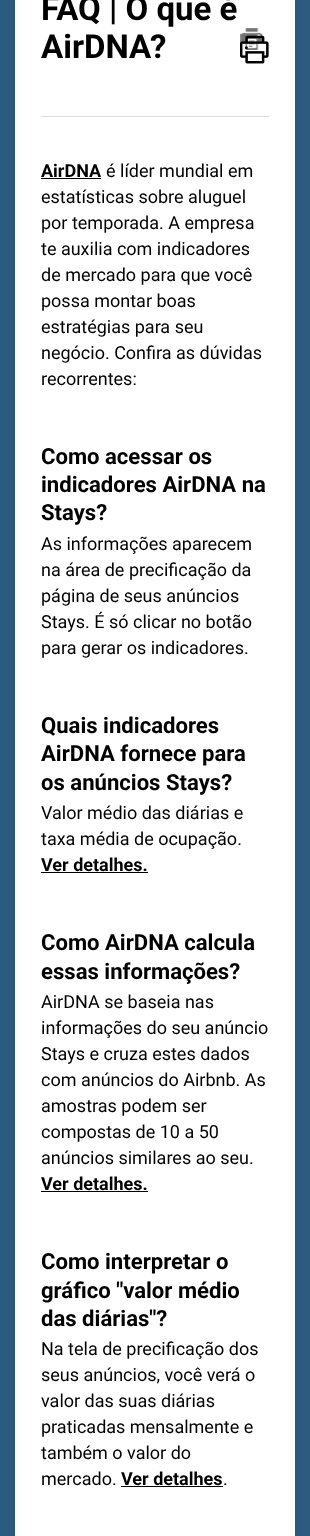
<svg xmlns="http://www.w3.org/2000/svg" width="310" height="1536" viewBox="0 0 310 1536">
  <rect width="100%" height="100%" fill="#2e5c82"/>
  <rect x="15" y="-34" width="280" height="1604" rx="4" fill="#0000001a" filter="blur(10px)"/>
  <path d="M15 0h280v1536H15z" fill="#fff"/>
  <image x="240" y="28" width="23" height="22" href="img/1.png"/>
  <image x="240" y="35" width="29" height="29" href="img/2.png"/>
  <path d="M41 116h228v1H41z" fill="#dcdcdc"/>
  <path d="M41 178h60v1H41z" fill="#000"/>
  <path d="M41 872h107v1H41z" fill="#000"/>
  <path d="M41 1191h107v1H41z" fill="#000"/>
  <path d="M121 1486h102v1H121z" fill="#000"/>
  <g font-family="Roboto" font-size="33" font-weight="bold" fill="#000">
    <text x="41" y="20">FAQ | O que é</text>
    <text x="41" y="58">AirDNA?</text>
  </g>
  <text x="41" y="177" font-family="Roboto" font-size="18" font-weight="bold" fill="#000">AirDNA</text>
  <g font-family="Roboto" font-size="18" fill="#000">
    <text x="106" y="177">é líder mundial em</text>
    <text x="41" y="203">estatísticas sobre aluguel</text>
    <text x="41" y="229">por temporada. A empresa</text>
    <text x="41" y="255">te auxilia com indicadores</text>
    <text x="41" y="281">de mercado para que você</text>
    <text x="41" y="307">possa montar boas</text>
    <text x="41" y="333">estratégias para seu</text>
    <text x="41" y="359">negócio. Confira as dúvidas</text>
    <text x="41" y="385">recorrentes:</text>
  </g>
  <g font-family="Roboto" font-size="22.1" font-weight="bold" fill="#000">
    <text x="41" y="464">Como acessar os</text>
    <text x="41" y="492">indicadores AirDNA na</text>
    <text x="41" y="520">Stays?</text>
  </g>
  <g font-family="Roboto" font-size="18" fill="#000">
    <text x="41" y="550">As informações aparecem</text>
    <text x="41" y="576">na área de precificação da</text>
    <text x="41" y="602">página de seus anúncios</text>
    <text x="41" y="628">Stays. É só clicar no botão</text>
    <text x="41" y="654">para gerar os indicadores.</text>
  </g>
  <g font-family="Roboto" font-size="22.1" font-weight="bold" fill="#000">
    <text x="41" y="733">Quais indicadores</text>
    <text x="41" y="761">AirDNA fornece para</text>
    <text x="41" y="790">os anúncios Stays?</text>
  </g>
  <g font-family="Roboto" font-size="18" fill="#000">
    <text x="41" y="819">Valor médio das diárias e</text>
    <text x="41" y="845">taxa média de ocupação.</text>
  </g>
  <text x="41" y="871" font-family="Roboto" font-size="18" font-weight="bold" fill="#000">Ver detalhes.</text>
  <g font-family="Roboto" font-size="22.1" font-weight="bold" fill="#000">
    <text x="41" y="950">Como AirDNA calcula</text>
    <text x="41" y="979">essas informações?</text>
  </g>
  <g font-family="Roboto" font-size="18" fill="#000">
    <text x="41" y="1008">AirDNA se baseia nas</text>
    <text x="41" y="1034">informações do seu anúncio</text>
    <text x="41" y="1060">Stays e cruza estes dados</text>
    <text x="41" y="1086">com anúncios do Airbnb. As</text>
    <text x="41" y="1112">amostras podem ser</text>
    <text x="41" y="1138">compostas de 10 a 50</text>
    <text x="41" y="1164">anúncios similares ao seu.</text>
  </g>
  <text x="41" y="1190" font-family="Roboto" font-size="18" font-weight="bold" fill="#000">Ver detalhes.</text>
  <g font-family="Roboto" font-size="22.1" font-weight="bold" fill="#000">
    <text x="41" y="1269">Como interpretar o</text>
    <text x="41" y="1298">gráfico "valor médio</text>
    <text x="41" y="1326">das diárias"?</text>
  </g>
  <g font-family="Roboto" font-size="18" fill="#000">
    <text x="41" y="1355">Na tela de precificação dos</text>
    <text x="41" y="1381">seus anúncios, você verá o</text>
    <text x="41" y="1407">valor das suas diárias</text>
    <text x="41" y="1433">praticadas mensalmente e</text>
    <text x="41" y="1459">também o valor do</text>
    <text x="41" y="1485">mercado.</text>
  </g>
  <text x="121" y="1485" font-family="Roboto" font-size="18" font-weight="bold" fill="#000">Ver detalhes</text>
  <text x="223" y="1485" font-family="Roboto" font-size="18" fill="#000">.</text>
</svg>
